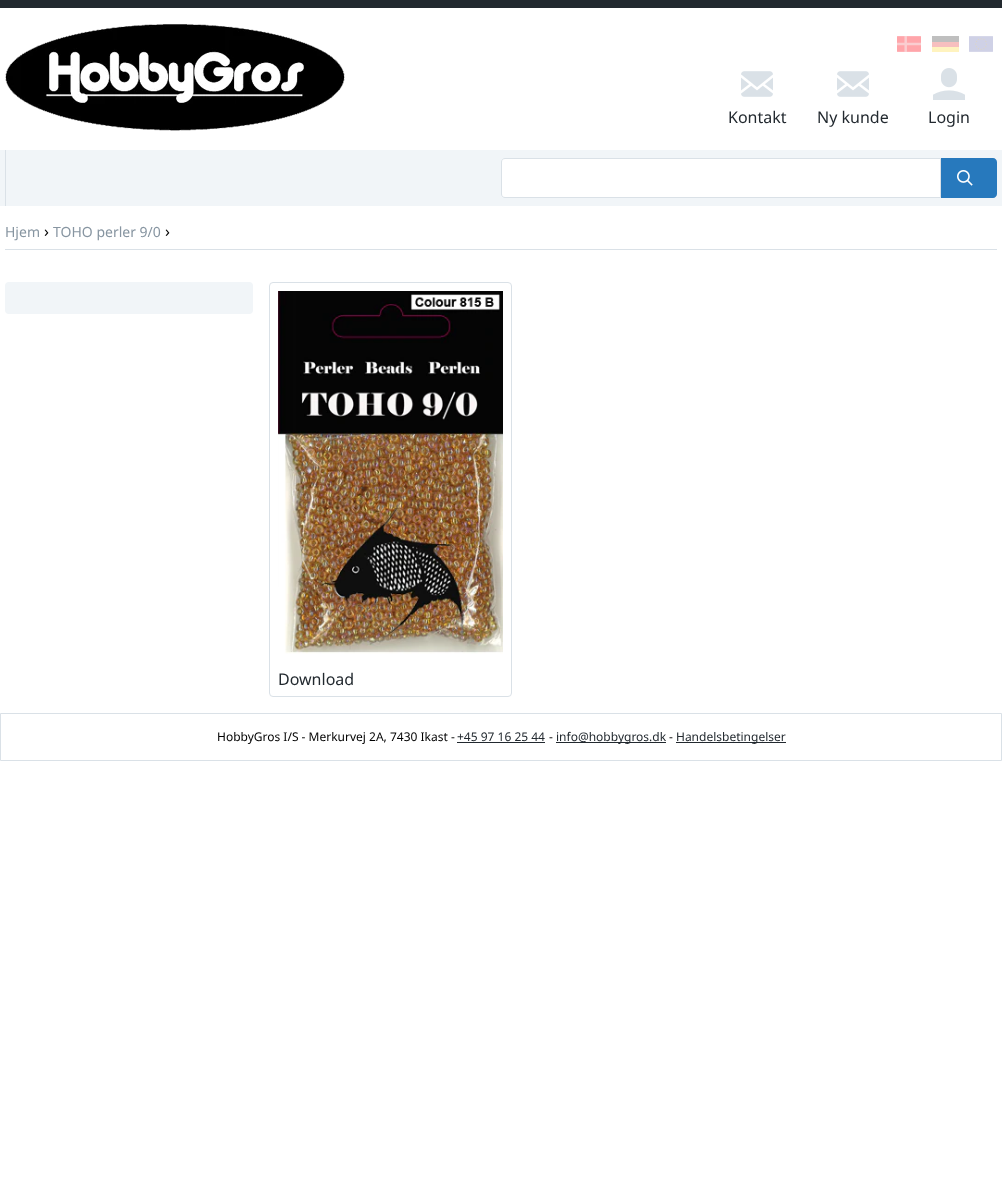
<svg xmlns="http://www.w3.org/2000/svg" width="1002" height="1199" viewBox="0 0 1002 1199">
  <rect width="100%" height="100%" fill="#fff"/>
  <path d="M0 0h1002v8H0z" fill="#22292f"/>
  <image x="5" y="24" width="340" height="107" href="img/1.png"/>
  <image x="897" y="36" width="24" height="16" href="img/2.png"/>
  <path d="M932 36h27v6H932z" fill="#bfbfbf"/>
  <path d="M932 42h27v5H932z" fill="#f7bfbf"/>
  <path d="M932 47h27v5H932z" fill="#fff3bf"/>
  <image x="969" y="36" width="24" height="16" href="img/3.png"/>
  <image x="741" y="71" width="32" height="26" href="img/4.png"/>
  <image x="837" y="71" width="32" height="26" href="img/4.png"/>
  <image x="933" y="68" width="32" height="32" href="img/5.png"/>
  <path d="M0 150h1002v56H0z" fill="#f1f5f8"/>
  <path d="M5 150h1v56H5z" fill="#dae1e7"/>
  <path d="M505 158.5H940.5V197.5H505C503 197.5 501.5 196 501.5 194V162C501.5 160 503 158.5 505 158.5Z" fill="#fff" stroke="#dae1e7"/>
  <path d="M941 158H993C995 158 997 160 997 162V194C997 196 995 198 993 198H941Z" fill="#2779bd"/>
  <image x="957" y="170" width="16" height="16" href="img/6.png"/>
  <path d="M5 249h992v1H5z" fill="#dae1e7"/>
  <rect x="5" y="282" width="248" height="32" rx="4" fill="#f1f5f8"/>
  <rect x="269.5" y="282.5" width="242" height="414" rx="3.5" fill="none" stroke="#dae1e7"/>
  <image x="278" y="291" width="225" height="363" href="img/7.png"/>
  <path d="M0.5 713.5h1001v47H0.5z" fill="none" stroke="#dae1e7"/>
  <path d="M457 742h88v1H457z" fill="#22292f"/>
  <path d="M556 742h110v1H556z" fill="#22292f"/>
  <path d="M676 742h110v1H676z" fill="#22292f"/>
  <g font-family="Noto Sans" font-size="16" fill="#22292f">
    <text x="728" y="123">Kontakt</text>
    <text x="817" y="123">Ny kunde</text>
    <text x="928" y="123">Login</text>
  </g>
  <text x="5" y="237" font-family="Noto Sans" font-size="14" fill="#8795a1">Hjem</text>
  <text x="44" y="237" font-family="Noto Sans" font-size="16" fill="#000">›</text>
  <text x="53" y="237" font-family="Noto Sans" font-size="14" fill="#8795a1">TOHO perler 9/0</text>
  <text x="165" y="237" font-family="Noto Sans" font-size="16" fill="#000">›</text>
  <text x="278" y="685" font-family="Noto Sans" font-size="16" fill="#22292f">Download</text>
  <text x="217" y="741" font-family="Noto Sans" font-size="12" fill="#000">HobbyGros I/S - Merkurvej 2A, 7430 Ikast -</text>
  <text x="457" y="741" font-family="Noto Sans" font-size="12" fill="#22292f">+45 97 16 25 44</text>
  <text x="549" y="741" font-family="Noto Sans" font-size="12" fill="#000">-</text>
  <text x="556" y="741" font-family="Noto Sans" font-size="12" fill="#22292f">info@hobbygros.dk</text>
  <text x="669" y="741" font-family="Noto Sans" font-size="12" fill="#000">-</text>
  <text x="676" y="741" font-family="Noto Sans" font-size="12" fill="#22292f">Handelsbetingelser</text>
</svg>
